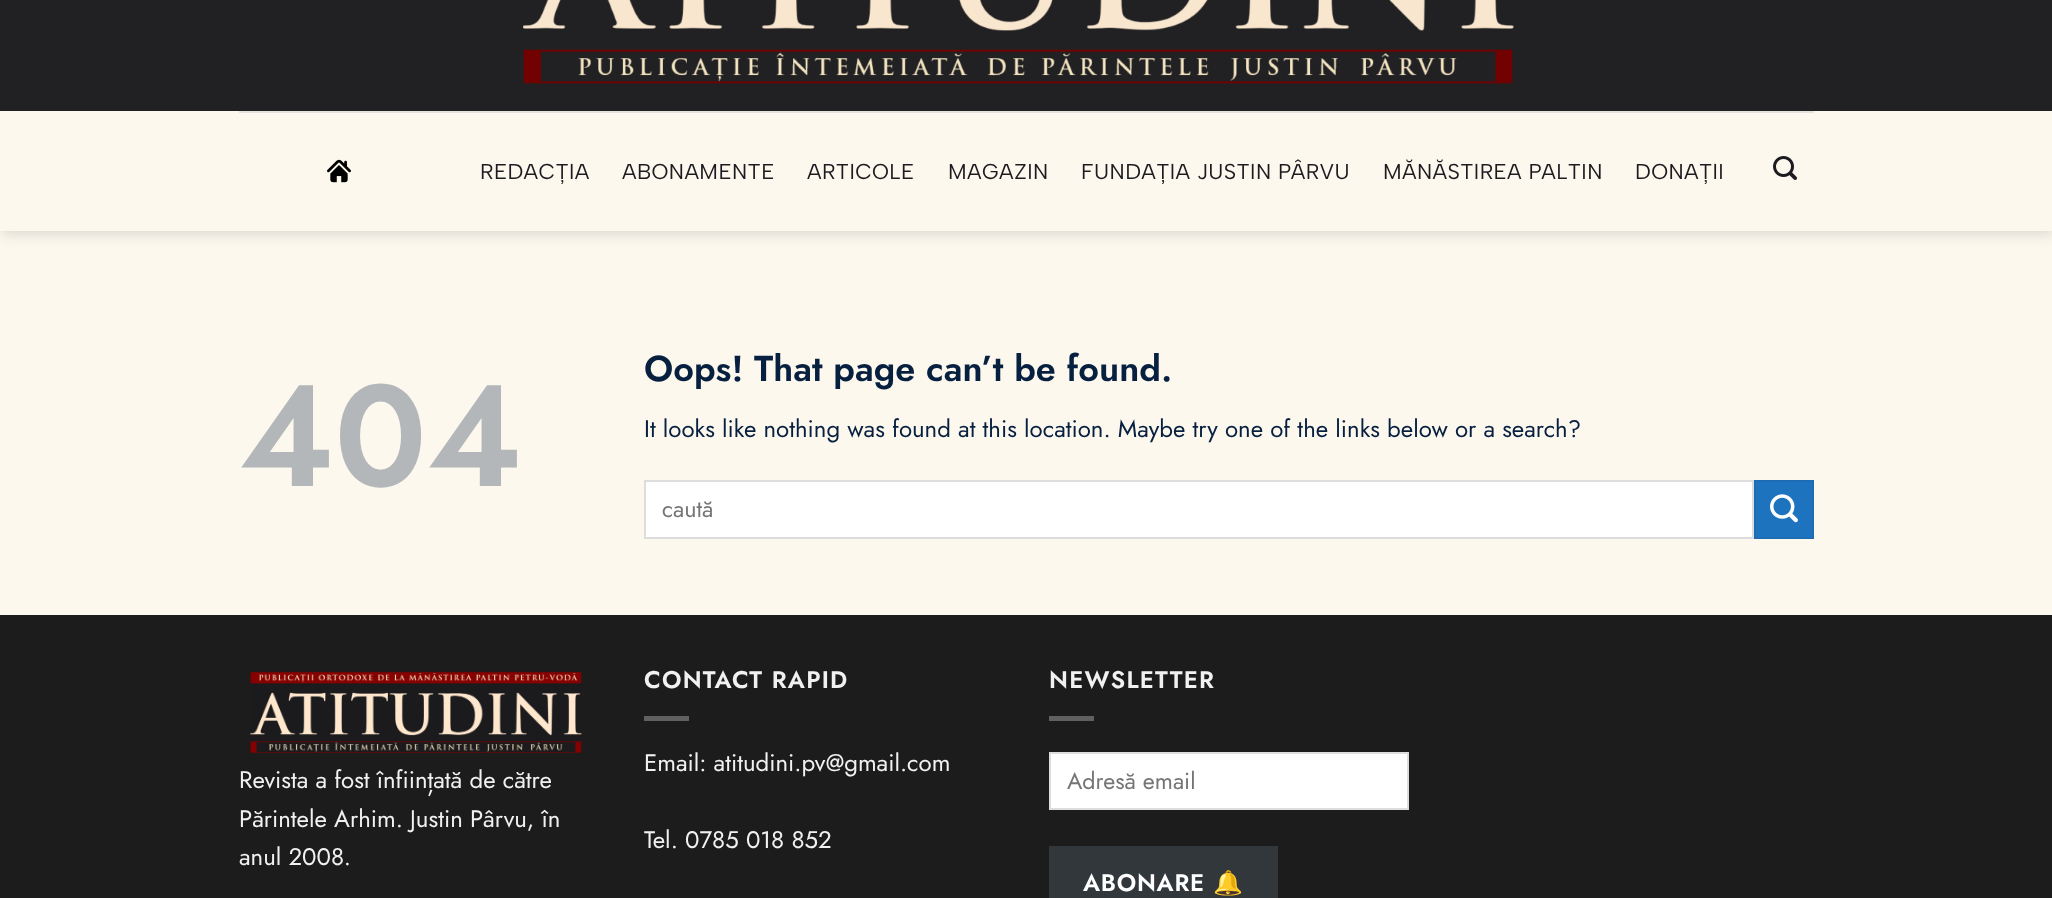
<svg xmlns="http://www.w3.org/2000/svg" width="2052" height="898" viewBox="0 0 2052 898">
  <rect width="100%" height="100%" fill="#fdf8ee"/>
  <path d="M2 -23h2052v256H2z" fill="#00000026" filter="blur(7.5px)"/>
  <path d="M0 0h2052v111H0z" fill="#212123"/>
  <image x="523" y="0" width="991" height="84" href="img/1.png"/>
  <path d="M0 111h2052v120H0z" fill="#fdf8ee"/>
  <path d="M239 111h1575v2H239z" fill="#e4e2dd"/>
  <image x="327" y="159" width="24" height="24" href="img/2.png"/>
  <image x="1773" y="156" width="24" height="24" href="img/3.png"/>
  <path d="M645 481h1108v57H645z" fill="#fff" stroke="#ddd" stroke-width="2"/>
  <path d="M1755 481h58v57H1755z" fill="#1e73be" stroke="#1d6db5" stroke-width="2"/>
  <image x="1770" y="494" width="28" height="29" href="img/4.png"/>
  <path d="M0 615h2052v283H0z" fill="#1c1c1c"/>
  <image x="250" y="671" width="332" height="82" href="img/5.png"/>
  <path d="M644 716h45v5H644z" fill="#606060"/>
  <path d="M1049 716h45v5H1049z" fill="#606060"/>
  <path d="M1050 753h358v56H1050z" fill="#fff" stroke="#ddd" stroke-width="2"/>
  <path d="M1049 846h229v52H1049z" fill="#32373c"/>
  <g font-family="Albert Sans" font-size="21.6" letter-spacing="0.4" fill="#1c1b20">
    <text x="480" y="179">REDACȚIA</text>
    <text x="622" y="179">ABONAMENTE</text>
    <text x="807" y="179">ARTICOLE</text>
    <text x="948" y="179">MAGAZIN</text>
    <text x="1081" y="179">FUNDAȚIA JUSTIN PÂRVU</text>
    <text x="1383" y="179">MĂNĂSTIREA PALTIN</text>
    <text x="1635" y="179">DONAȚII</text>
  </g>
  <text x="239" y="486" font-family="Jost" font-size="144" font-weight="600" fill="#b3b7ba">404</text>
  <text x="644" y="381" font-family="Jost" font-size="36" font-weight="600" fill="#072040">Oops! That page can’t be found.</text>
  <text x="644" y="437" font-family="Jost" font-size="24" fill="#072040">It looks like nothing was found at this location. Maybe try one of the links below or a search?</text>
  <text x="662" y="517" font-family="Jost" font-size="23.25" fill="#757575">caută</text>
  <g font-family="Jost" font-size="24" fill="#f1f1f1">
    <text x="239" y="788">Revista a fost înființată de către</text>
    <text x="239" y="827">Părintele Arhim. Justin Pârvu, în</text>
    <text x="239" y="865">anul 2008.</text>
  </g>
  <text x="644" y="688" font-family="Jost" font-size="24" font-weight="600" letter-spacing="1.25" fill="#f1f1f1">CONTACT RAPID</text>
  <g font-family="Jost" font-size="24" fill="#f1f1f1">
    <text x="644" y="771">Email: atitudini.pv@gmail.com</text>
    <text x="644" y="848">Tel. 0785 018 852</text>
  </g>
  <text x="1049" y="688" font-family="Jost" font-size="24" font-weight="600" letter-spacing="1.25" fill="#f1f1f1">NEWSLETTER</text>
  <text x="1067" y="789" font-family="Jost" font-size="23.25" fill="#757575">Adresă email</text>
  <text x="1083" y="891" font-family="Jost" font-size="24" font-weight="600" letter-spacing="0.75" fill="#fff">ABONARE</text>
  <text x="1213" y="891" font-family="Noto Color Emoji" font-size="24" font-weight="bold" letter-spacing="0.75" fill="#fff">🔔</text>
</svg>
